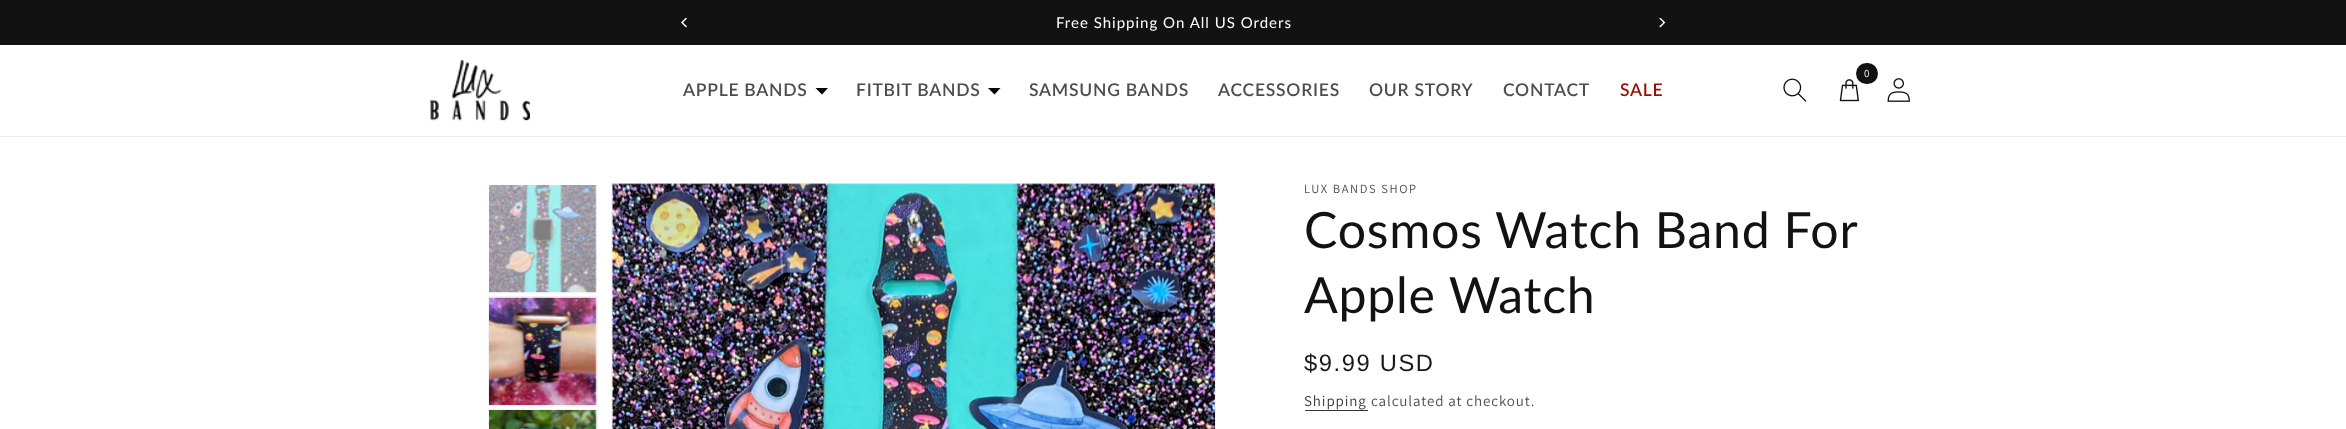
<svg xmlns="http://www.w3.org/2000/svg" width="2346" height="429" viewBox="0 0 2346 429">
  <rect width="100%" height="100%" fill="#fff"/>
  <path d="M0 0h2346v45H0z" fill="#121212"/>
  <image x="681" y="18" width="6" height="10" href="img/1.png"/>
  <image x="1659" y="18" width="7" height="10" href="img/2.png"/>
  <path d="M0 136h2346v1H0z" fill="#ececec"/>
  <image x="429" y="60" width="101" height="61" href="img/3.png"/>
  <image x="1839" y="79" width="20" height="23" href="img/4.png"/>
  <rect x="1856" y="63" width="22" height="21" rx="10.5" fill="#121212"/>
  <image x="1783" y="78" width="24" height="24" href="img/5.png"/>
  <image x="1887" y="78" width="23" height="24" href="img/6.png"/>
  <path d="M815.5 88H828L822 94.5Z" fill="#000"/>
  <path d="M988 88H1000.5L994.5 94.5Z" fill="#000"/>
  <image x="489" y="185" width="108" height="108" href="img/7.png"/>
  <path d="M488.5 296.5h109v109H488.5z" fill="none" stroke="#f3f3f3"/>
  <image x="489" y="297" width="108" height="108" href="img/8.png"/>
  <path d="M488.5 409.5h109v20H488.5z" fill="none" stroke="#f3f3f3"/>
  <image x="489" y="410" width="108" height="19" href="img/9.png"/>
  <path d="M611.5 183.5h604v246H611.5z" fill="none" stroke="#f3f3f3"/>
  <image x="612" y="183" width="603" height="246" href="img/10.png"/>
  <path d="M1305 410h63v1H1305z" fill="#363636"/>
  <text x="1056" y="28" font-family="Lato" font-size="15" letter-spacing="1" fill="#fff">Free Shipping On All US Orders</text>
  <text x="1864" y="77" font-family="Assistant" font-size="11" letter-spacing="0.75" fill="#fff">0</text>
  <g font-family="Lato" font-size="17.5" font-weight="600" letter-spacing="0.75" fill="#4d4d4d">
    <text x="683" y="96">APPLE BANDS</text>
    <text x="856" y="96">FITBIT BANDS</text>
    <text x="1029" y="96">SAMSUNG BANDS</text>
    <text x="1218" y="96">ACCESSORIES</text>
    <text x="1369" y="96">OUR STORY</text>
    <text x="1503" y="96">CONTACT</text>
  </g>
  <text x="1620" y="96" font-family="Lato" font-size="17.5" font-weight="600" letter-spacing="0.75" fill="#941000">SALE</text>
  <text x="1304" y="193" font-family="Assistant" font-size="12.5" letter-spacing="1.6" fill="#4d4d4d">LUX BANDS SHOP</text>
  <g font-family="Lato" font-size="50" letter-spacing="0.75" fill="#121212">
    <text x="1304" y="248" word-spacing="-0.5">Cosmos Watch Band For</text>
    <text x="1304" y="313">Apple Watch</text>
  </g>
  <text x="1304" y="371" font-family="Liberation Sans" font-size="23.75" letter-spacing="1.6" fill="#191919">$9.99 USD</text>
  <text x="1304" y="406" font-family="Assistant" font-size="15" letter-spacing="0.9" fill="#363636">Shipping</text>
  <text x="1371" y="406" font-family="Assistant" font-size="15" letter-spacing="0.9" fill="#4d4d4d">calculated at checkout.</text>
</svg>
